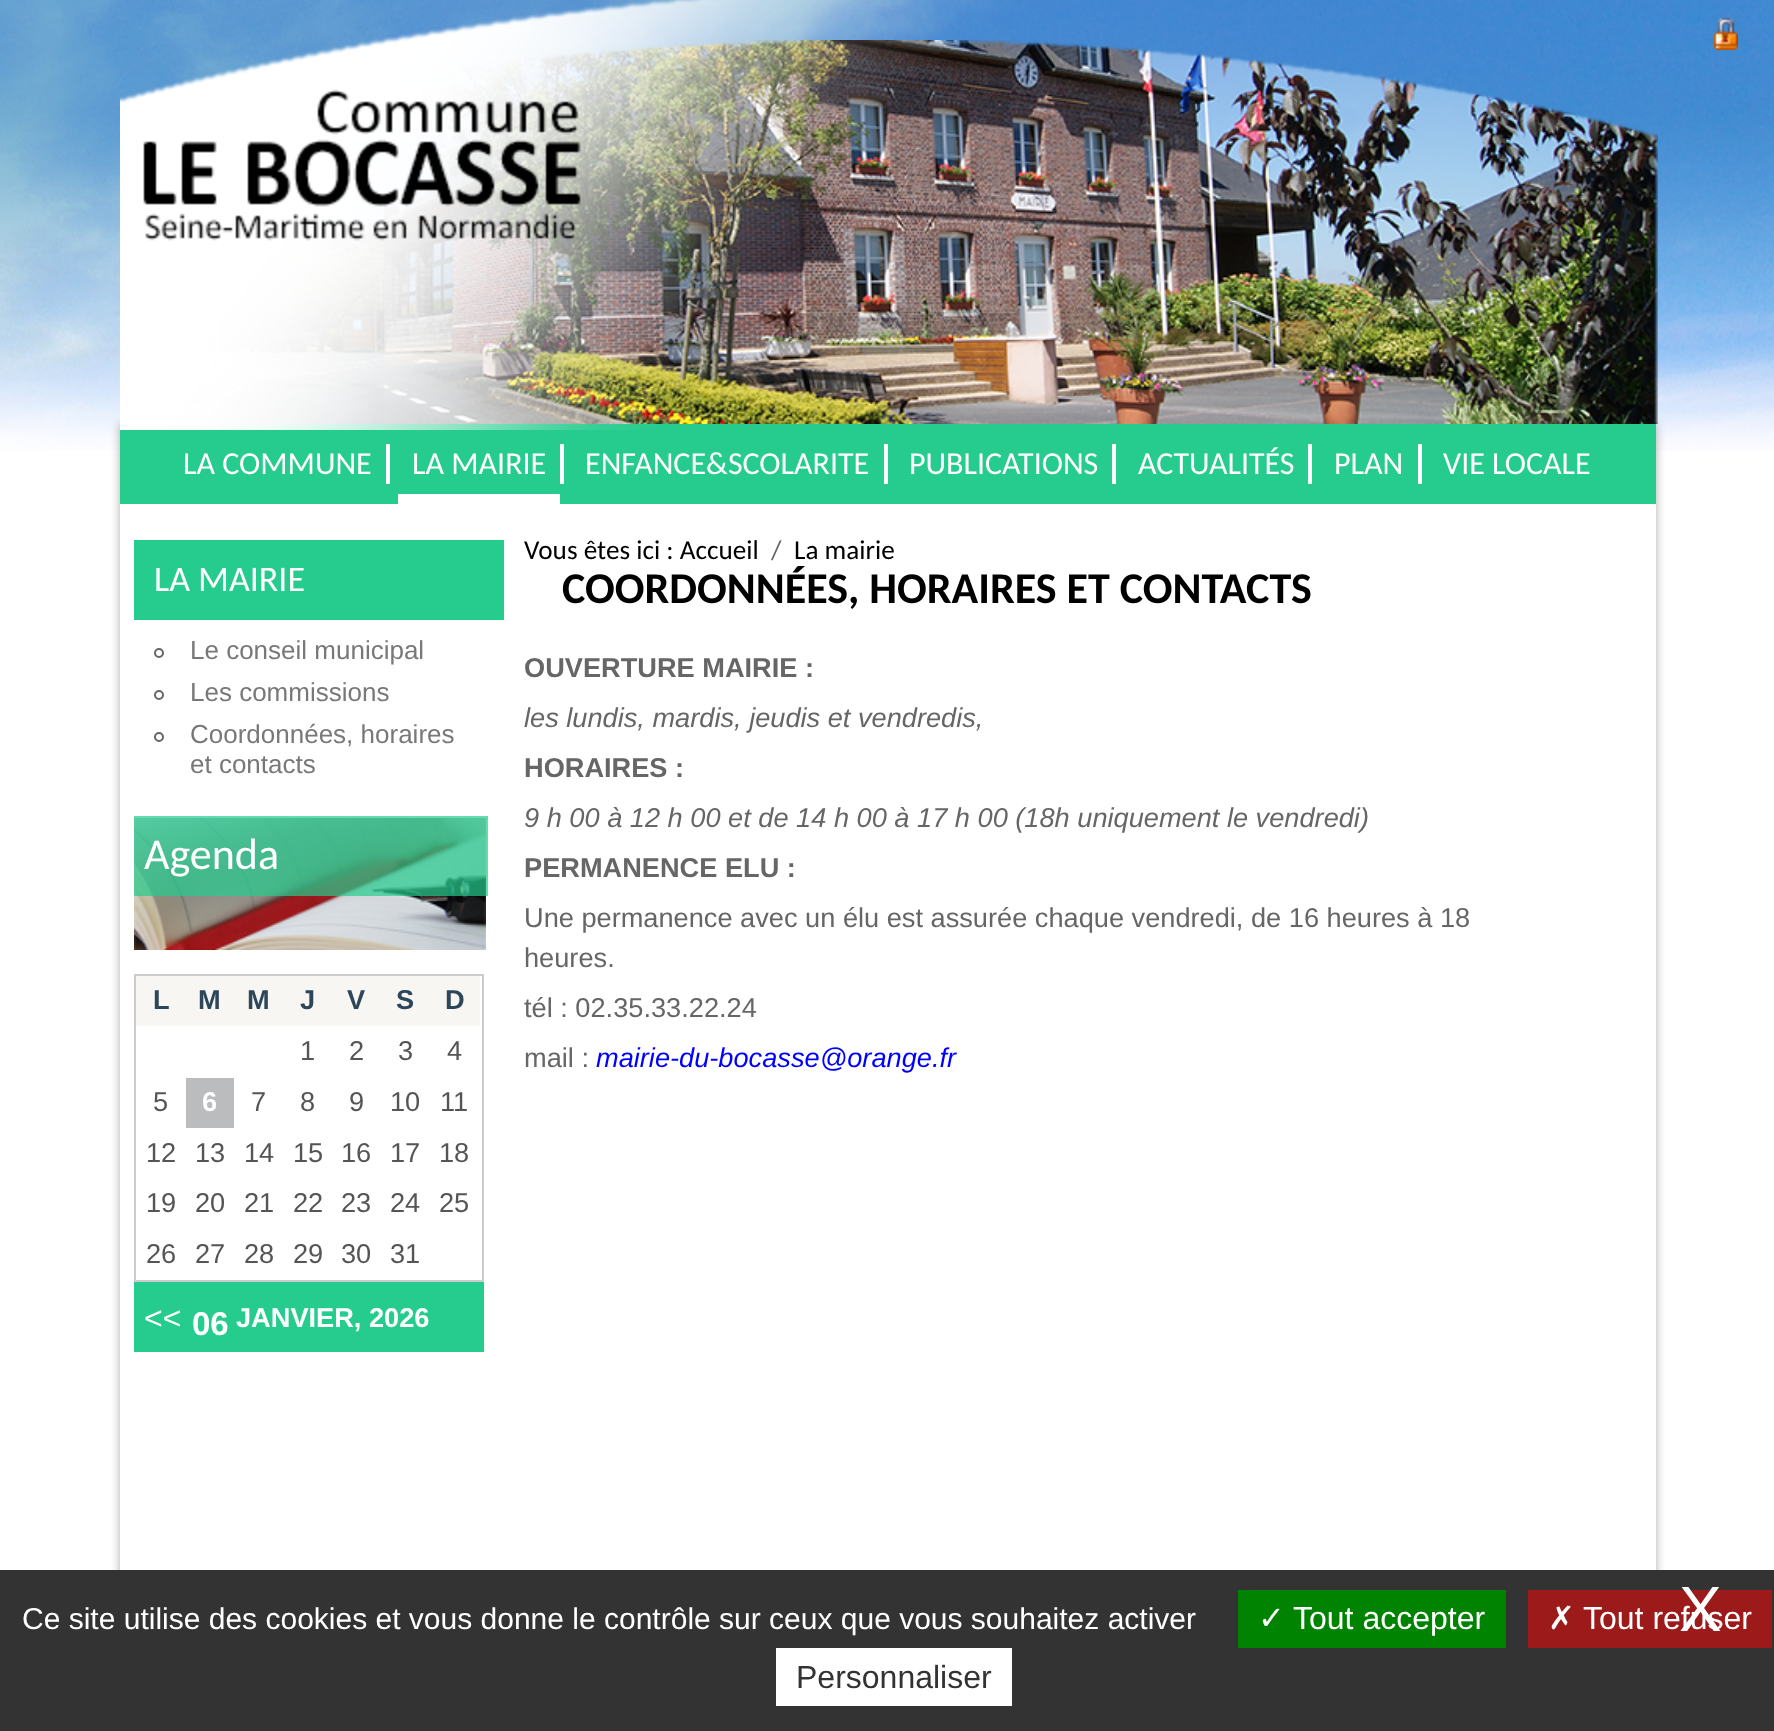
<svg xmlns="http://www.w3.org/2000/svg" width="1774" height="1731" viewBox="0 0 1774 1731">
  <rect width="100%" height="100%" fill="#fff"/>
  <image x="0" y="0" width="1774" height="451" href="img/2.png"/>
  <image x="1714" y="18" width="24" height="32" href="img/1.png"/>
  <path d="M120 424h1536v1172H120z" fill="#aaa" filter="blur(5px)"/>
  <image x="171" y="40" width="1487" height="384" href="img/4.png"/>
  <path d="M120 424h1536v80H120z" fill="#25cc8d"/>
  <image x="120" y="0" width="847" height="430" href="img/3.png"/>
  <path d="M386 444h4v40H386z" fill="#fff"/>
  <path d="M560 444h4v40H560z" fill="#fff"/>
  <path d="M398 494h162v10H398z" fill="#fff"/>
  <path d="M884 444h4v40H884z" fill="#fff"/>
  <path d="M1112 444h4v40H1112z" fill="#fff"/>
  <path d="M1308 444h4v40H1308z" fill="#fff"/>
  <path d="M1418 444h4v40H1418z" fill="#fff"/>
  <path d="M120 504h1536v1066H120z" fill="#fff"/>
  <path d="M134 540h370v80H134z" fill="#25cc8d"/>
  <circle cx="159" cy="653" r="4" fill="none" stroke="#666" stroke-width="2"/>
  <circle cx="159" cy="695" r="4" fill="none" stroke="#666" stroke-width="2"/>
  <circle cx="159" cy="737" r="4" fill="none" stroke="#666" stroke-width="2"/>
  <image x="134" y="818" width="352" height="132" href="img/5.png"/>
  <path d="M134 816h354v80H134z" fill="#25cc8db3"/>
  <path d="M135 975h348v306H135z" fill="none" stroke="#ccc" stroke-width="2"/>
  <path d="M136 976h344v50H136z" fill="#f7f6f2"/>
  <path d="M186 1078h48v50H186z" fill="#babcbd"/>
  <path d="M134 1282h350v70H134z" fill="#25cc8d"/>
  <path d="M0 1570h1774v161H0z" fill="#333"/>
  <path d="M1238 1590h268v58H1238z" fill="#008300"/>
  <path d="M1528 1590h244v58H1528z" fill="#9c1a1a"/>
  <path d="M776 1648h236v58H776z" fill="#fff"/>
  <g font-family="Carlito" font-size="32" fill="#fff">
    <text x="183" y="474">LA COMMUNE</text>
    <text x="412" y="474">LA MAIRIE</text>
    <text x="585" y="474">ENFANCE&amp;SCOLARITE</text>
    <text x="909" y="474">PUBLICATIONS</text>
    <text x="1138" y="474">ACTUALITÉS</text>
    <text x="1334" y="474">PLAN</text>
    <text x="1443" y="474">VIE LOCALE</text>
  </g>
  <text x="154" y="591" font-family="Carlito" font-size="36" fill="#fff">LA MAIRIE</text>
  <g font-family="Liberation Sans" font-size="26" fill="#787878">
    <text x="190" y="659">Le conseil municipal</text>
    <text x="190" y="701">Les commissions</text>
    <text x="190" y="743">Coordonnées, horaires</text>
    <text x="190" y="773">et contacts</text>
  </g>
  <text x="144" y="869" font-family="Carlito" font-size="44" fill="#fff">Agenda</text>
  <g font-family="Liberation Sans" font-size="27.2" font-weight="bold" fill="#2d465a">
    <text x="153" y="1009">L</text>
    <text x="198" y="1009">M</text>
    <text x="247" y="1009">M</text>
    <text x="300" y="1009">J</text>
    <text x="347" y="1009">V</text>
    <text x="396" y="1009">S</text>
    <text x="445" y="1009">D</text>
  </g>
  <g font-family="Liberation Sans" font-size="27.2" fill="#555">
    <text x="300" y="1060">1</text>
    <text x="349" y="1060">2</text>
    <text x="398" y="1060">3</text>
    <text x="447" y="1060">4</text>
    <text x="153" y="1111">5</text>
  </g>
  <text x="202" y="1111" font-family="Liberation Sans" font-size="27.2" font-weight="bold" fill="#fff">6</text>
  <g font-family="Liberation Sans" font-size="27.2" fill="#555">
    <text x="251" y="1111">7</text>
    <text x="300" y="1111">8</text>
    <text x="349" y="1111">9</text>
    <text x="390" y="1111">10</text>
    <text x="440" y="1111">11</text>
    <text x="146" y="1162">12</text>
    <text x="195" y="1162">13</text>
    <text x="244" y="1162">14</text>
    <text x="293" y="1162">15</text>
    <text x="341" y="1162">16</text>
    <text x="390" y="1162">17</text>
    <text x="439" y="1162">18</text>
    <text x="146" y="1212">19</text>
    <text x="195" y="1212">20</text>
    <text x="244" y="1212">21</text>
    <text x="293" y="1212">22</text>
    <text x="341" y="1212">23</text>
    <text x="390" y="1212">24</text>
    <text x="439" y="1212">25</text>
    <text x="146" y="1263">26</text>
    <text x="195" y="1263">27</text>
    <text x="244" y="1263">28</text>
    <text x="293" y="1263">29</text>
    <text x="341" y="1263">30</text>
    <text x="390" y="1263">31</text>
  </g>
  <text x="144" y="1329" font-family="Liberation Sans" font-size="32" fill="#fff">&lt;&lt;</text>
  <text x="192" y="1335" font-family="Liberation Sans" font-size="33" font-weight="bold" fill="#fff">06</text>
  <text x="236" y="1327" font-family="Liberation Sans" font-size="27.2" font-weight="bold" fill="#fff">JANVIER, 2026</text>
  <text x="524" y="559" font-family="Carlito" font-size="27.2" fill="#000">Vous êtes ici : Accueil</text>
  <text x="771" y="559" font-family="Carlito" font-size="27.2" fill="#666">/</text>
  <text x="794" y="559" font-family="Carlito" font-size="27.2" fill="#000">La mairie</text>
  <text x="562" y="603" font-family="Carlito" font-size="44" font-weight="bold" fill="#000">COORDONNÉES, HORAIRES ET CONTACTS</text>
  <text x="524" y="677" font-family="Liberation Sans" font-size="27.2" font-weight="bold" fill="#666">OUVERTURE MAIRIE :</text>
  <text x="524" y="727" font-family="Liberation Sans" font-size="27.2" font-style="italic" fill="#666">les lundis, mardis, jeudis et vendredis,</text>
  <text x="524" y="777" font-family="Liberation Sans" font-size="27.2" font-weight="bold" fill="#666">HORAIRES :</text>
  <text x="524" y="827" font-family="Liberation Sans" font-size="27.2" font-style="italic" fill="#666">9 h 00 à 12 h 00 et de 14 h 00 à 17 h 00 (18h uniquement le vendredi)</text>
  <text x="524" y="877" font-family="Liberation Sans" font-size="27.2" font-weight="bold" fill="#666">PERMANENCE ELU :</text>
  <g font-family="Liberation Sans" font-size="27.2" fill="#666">
    <text x="524" y="927">Une permanence avec un élu est assurée chaque vendredi, de 16 heures à 18</text>
    <text x="524" y="967">heures.</text>
    <text x="524" y="1017">tél : 02.35.33.22.24</text>
    <text x="524" y="1067">mail :</text>
  </g>
  <text x="596" y="1067" font-family="Liberation Sans" font-size="27.2" font-style="italic" fill="#00f">mairie-du-bocasse@orange.fr</text>
  <text x="22" y="1629" font-family="Liberation Sans" font-size="30" fill="#fff">Ce site utilise des cookies et vous donne le contrôle sur ceux que vous souhaitez activer</text>
  <text x="1258" y="1629" font-family="DejaVu Sans" font-size="32" fill="#fff">✓</text>
  <text x="1293" y="1629" font-family="Liberation Sans" font-size="32" fill="#fff">Tout accepter</text>
  <text x="1548" y="1629" font-family="DejaVu Sans" font-size="32" fill="#fff">✗</text>
  <text x="1583" y="1629" font-family="Liberation Sans" font-size="32" fill="#fff">Tout refuser</text>
  <text x="1679" y="1631" font-family="Liberation Sans" font-size="64" fill="#fff">X</text>
  <text x="796" y="1688" font-family="Liberation Sans" font-size="32" fill="#333">Personnaliser</text>
</svg>
